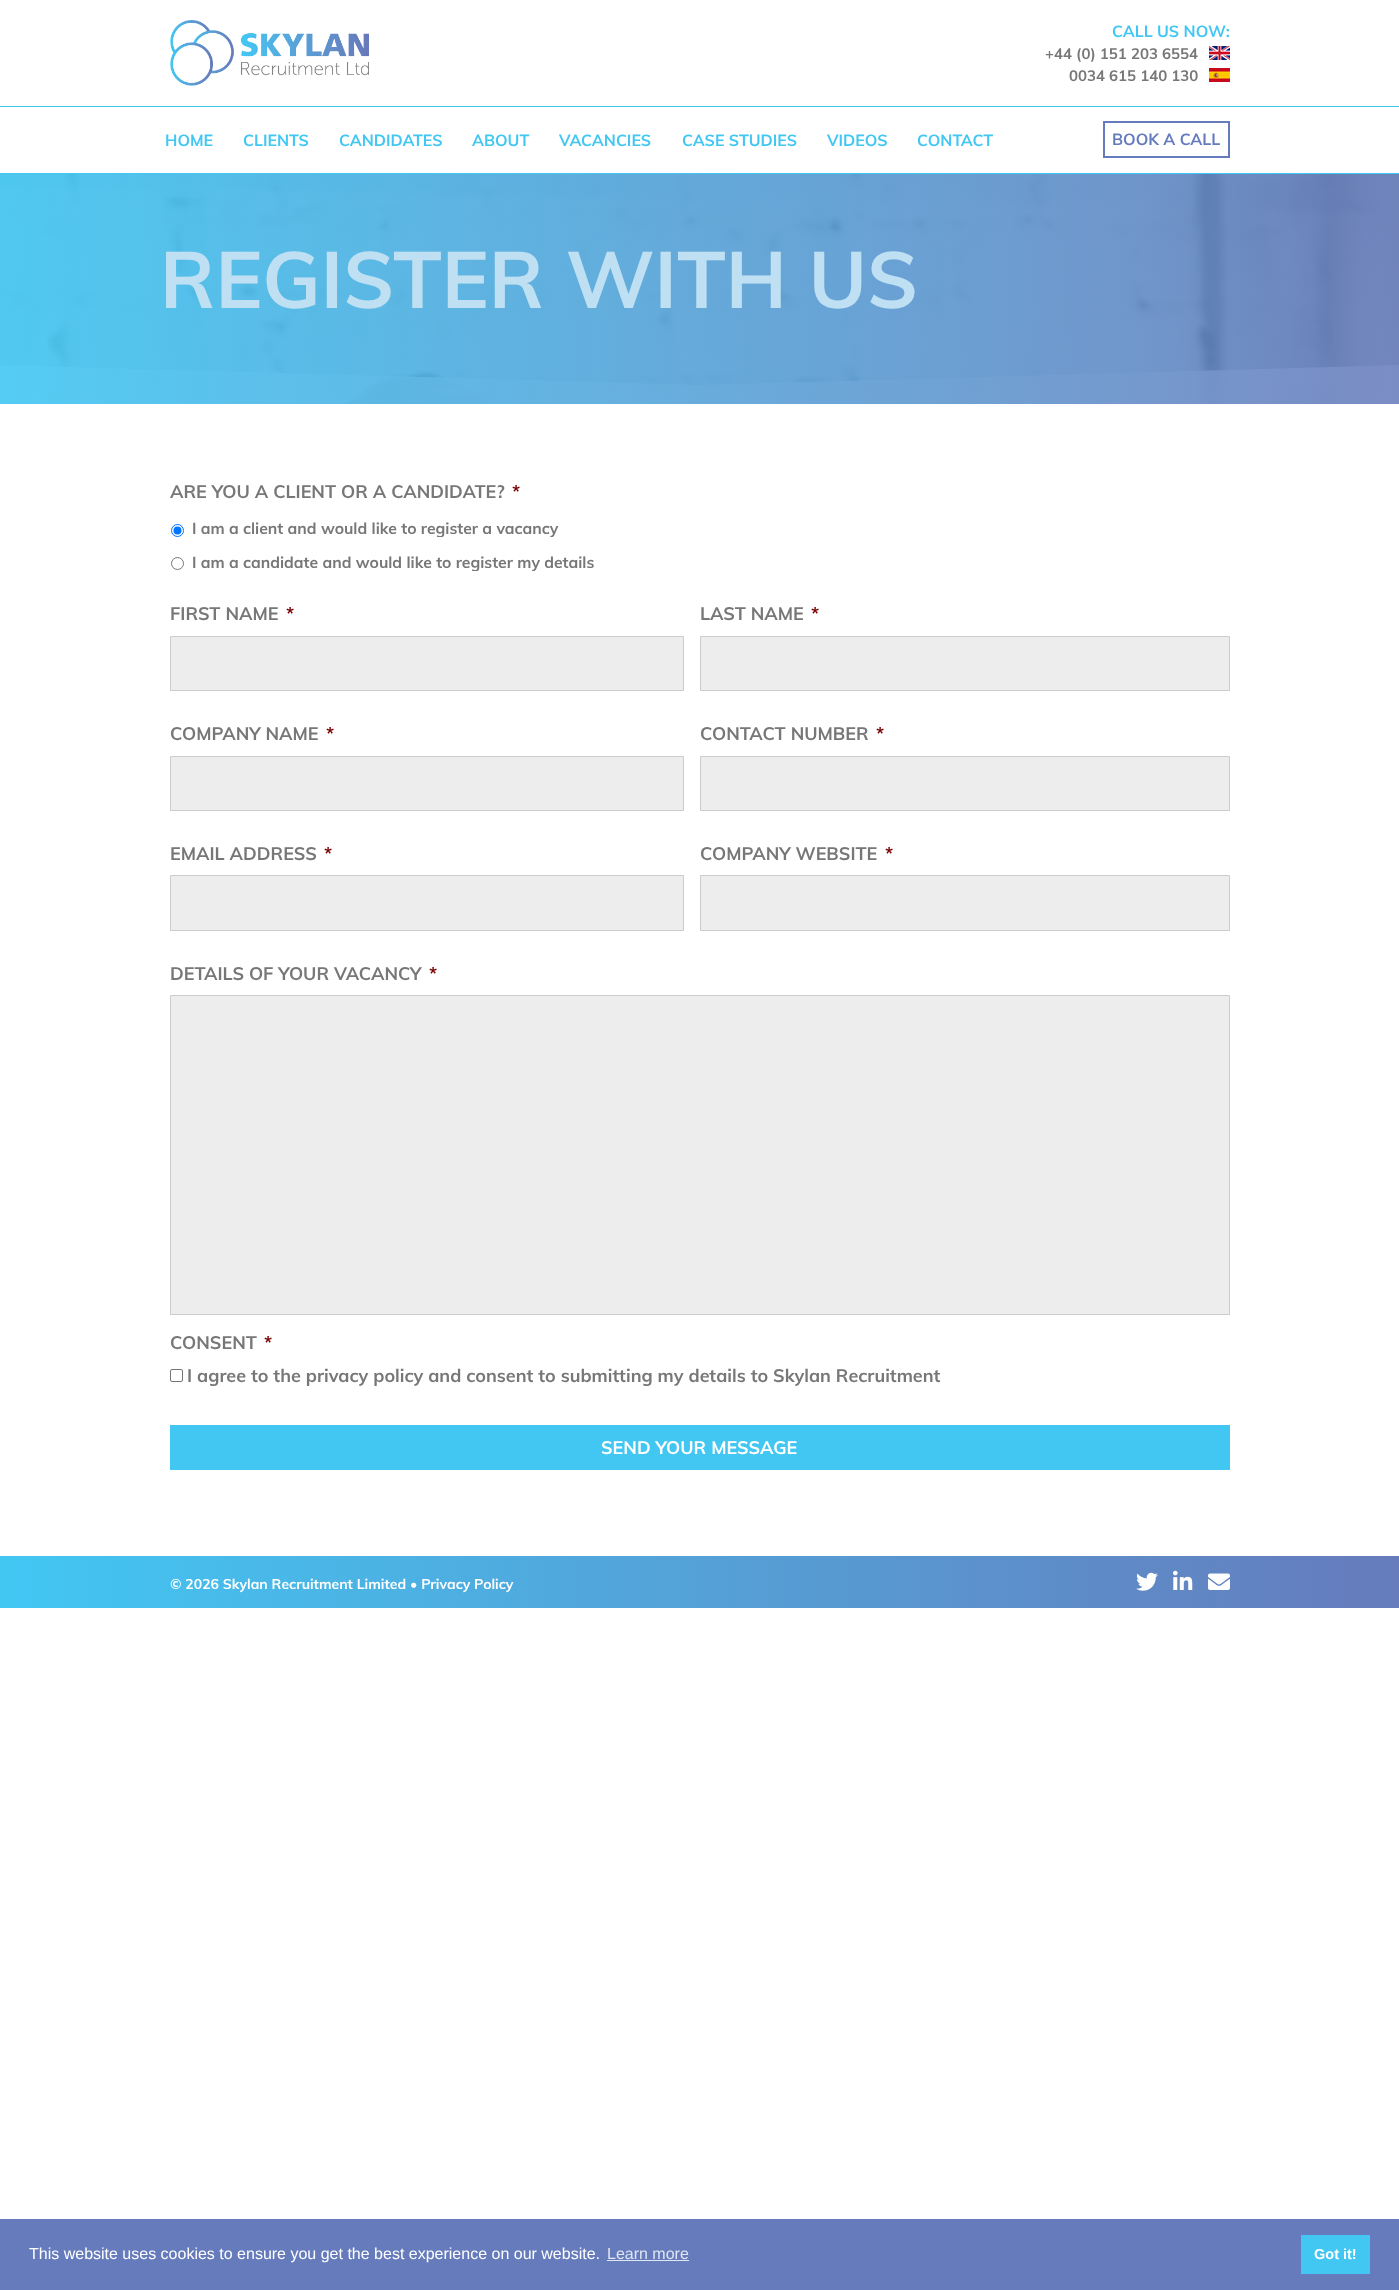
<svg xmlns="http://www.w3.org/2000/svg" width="1399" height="2290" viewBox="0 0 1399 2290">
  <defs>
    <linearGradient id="g1" gradientUnits="userSpaceOnUse" x1="0" y1="289" x2="1399" y2="289"><stop offset="0" stop-color="#42c7f3" stop-opacity="0.9"/><stop offset="1" stop-color="#667bbc" stop-opacity="0.85"/></linearGradient>
    <linearGradient id="g2" gradientUnits="userSpaceOnUse" x1="0" y1="1582" x2="1399" y2="1582"><stop offset="0" stop-color="#42c7f3"/><stop offset="1" stop-color="#667bbc"/></linearGradient>
    <clipPath id="clip1"><path d="M170 514h1076v23H170z"/></clipPath>
    <clipPath id="clip2"><path d="M170 547h1076v24H170z"/></clipPath>
  </defs>
  <rect width="100%" height="100%" fill="#fff"/>
  <image x="170" y="20" width="199" height="66" href="img/1.png"/>
  <image x="1209" y="46" width="21" height="14" href="img/2.png"/>
  <image x="1209" y="68" width="21" height="14" href="img/3.png"/>
  <path d="M0 106h1399v1H0z" fill="#42c7f3"/>
  <path d="M0 173h1399v1H0z" fill="#42c7f3"/>
  <path d="M1104 122h125v35H1104z" fill="none" stroke="#667bbc" stroke-width="2"/>
  <image x="0" y="174" width="1399" height="230" href="img/4.png"/>
  <path d="M0 365H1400ZM0 405H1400V385H0ZM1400 365V385H0V365L700 385Z" fill="#ffffffcc"/>
  <path d="M0 174h1399v230H0z" fill="url(#g1)"/>
  <circle cx="177.5" cy="530.5" r="6" fill="none" stroke="#0075ff"/>
  <circle cx="177.5" cy="530.5" r="4" fill="#0075ff"/>
  <circle cx="177.5" cy="563.5" r="6" fill="none" stroke="#767676"/>
  <path d="M170.5 636.5h513v54H170.5z" fill="#ededed" stroke="#ccc"/>
  <path d="M700.5 636.5h529v54H700.5z" fill="#ededed" stroke="#ccc"/>
  <path d="M170.5 756.5h513v54H170.5z" fill="#ededed" stroke="#ccc"/>
  <path d="M700.5 756.5h529v54H700.5z" fill="#ededed" stroke="#ccc"/>
  <path d="M170.5 875.5h513v55H170.5z" fill="#ededed" stroke="#ccc"/>
  <path d="M700.5 875.5h529v55H700.5z" fill="#ededed" stroke="#ccc"/>
  <path d="M170.5 995.5h1059v319H170.5z" fill="#ededed" stroke="#ccc"/>
  <rect x="170.5" y="1369.5" width="12" height="12" rx="1.5" fill="none" stroke="#767676"/>
  <path d="M170 1425h1060v45H170z" fill="#42c7f3"/>
  <path d="M0 1556h1399v52H0z" fill="url(#g2)"/>
  <image x="1136" y="1572" width="22" height="19" href="img/5.png"/>
  <image x="1173" y="1570" width="20" height="20" href="img/6.png"/>
  <image x="1208" y="1573" width="22" height="17" href="img/7.png"/>
  <path d="M0 2219h1399v71H0z" fill="#667bbc"/>
  <path d="M607 2260h82v1H607z" fill="#e0e5f2"/>
  <path d="M1301 2235h69v39H1301z" fill="#42c7f3"/>
  <text x="1112" y="37" font-family="Muli" font-size="16" font-weight="bold" fill="#42c7f3">CALL US NOW:</text>
  <g font-family="Muli" font-size="15" font-weight="bold" fill="#777">
    <text x="1045" y="59">+44 (0) 151 203 6554</text>
    <text x="1069" y="81">0034 615 140 130</text>
  </g>
  <g font-family="Muli" font-size="16" font-weight="bold" fill="#42c7f3">
    <text x="165" y="146">HOME</text>
    <text x="243" y="146">CLIENTS</text>
    <text x="339" y="146">CANDIDATES</text>
    <text x="472" y="146">ABOUT</text>
    <text x="559" y="146">VACANCIES</text>
    <text x="682" y="146">CASE STUDIES</text>
    <text x="827" y="146">VIDEOS</text>
    <text x="917" y="146">CONTACT</text>
  </g>
  <text x="1112" y="145" font-family="Muli" font-size="16" font-weight="bold" fill="#667bbc">BOOK A CALL</text>
  <text x="160" y="308" font-family="Muli" font-size="79" font-weight="bold" fill="#bfe0f2">REGISTER WITH US</text>
  <text x="170" y="498" font-family="Muli" font-size="18" font-weight="bold" fill="#777">ARE YOU A CLIENT OR A CANDIDATE?</text>
  <text x="512" y="498" font-family="Muli" font-size="18" font-weight="bold" fill="#790000">*</text>
  <g clip-path="url(#clip1)">
    <text x="192" y="534" font-family="Muli" font-size="15.75" font-weight="bold" fill="#777">I am a client and would like to register a vacancy</text>
  </g>
  <g clip-path="url(#clip2)">
    <text x="192" y="568" font-family="Muli" font-size="15.75" font-weight="bold" fill="#777">I am a candidate and would like to register my details</text>
  </g>
  <text x="170" y="620" font-family="Muli" font-size="18" font-weight="bold" fill="#777">FIRST NAME</text>
  <text x="286" y="620" font-family="Muli" font-size="18" font-weight="bold" fill="#790000">*</text>
  <text x="700" y="620" font-family="Muli" font-size="18" font-weight="bold" fill="#777">LAST NAME</text>
  <text x="811" y="620" font-family="Muli" font-size="18" font-weight="bold" fill="#790000">*</text>
  <text x="170" y="740" font-family="Muli" font-size="18" font-weight="bold" fill="#777">COMPANY NAME</text>
  <text x="326" y="740" font-family="Muli" font-size="18" font-weight="bold" fill="#790000">*</text>
  <text x="700" y="740" font-family="Muli" font-size="18" font-weight="bold" fill="#777">CONTACT NUMBER</text>
  <text x="876" y="740" font-family="Muli" font-size="18" font-weight="bold" fill="#790000">*</text>
  <text x="170" y="860" font-family="Muli" font-size="18" font-weight="bold" fill="#777">EMAIL ADDRESS</text>
  <text x="324" y="860" font-family="Muli" font-size="18" font-weight="bold" fill="#790000">*</text>
  <text x="700" y="860" font-family="Muli" font-size="18" font-weight="bold" fill="#777">COMPANY WEBSITE</text>
  <text x="885" y="860" font-family="Muli" font-size="18" font-weight="bold" fill="#790000">*</text>
  <text x="170" y="980" font-family="Muli" font-size="18" font-weight="bold" fill="#777">DETAILS OF YOUR VACANCY</text>
  <text x="429" y="980" font-family="Muli" font-size="18" font-weight="bold" fill="#790000">*</text>
  <text x="170" y="1349" font-family="Muli" font-size="18" font-weight="bold" fill="#777">CONSENT</text>
  <text x="264" y="1349" font-family="Muli" font-size="18" font-weight="bold" fill="#790000">*</text>
  <text x="187" y="1382" font-family="Muli" font-size="18" font-weight="bold" fill="#777">I agree to the privacy policy and consent to submitting my details to Skylan Recruitment</text>
  <text x="601" y="1454" font-family="Muli" font-size="18" font-weight="bold" fill="#fff">SEND YOUR MESSAGE</text>
  <text x="170" y="1589" font-family="Muli" font-size="14" font-weight="bold" fill="#fff">© 2026 Skylan Recruitment Limited • Privacy Policy</text>
  <text x="29" y="2259" font-family="Liberation Sans" font-size="16" fill="#fff">This website uses cookies to ensure you get the best experience on our website.</text>
  <text x="607" y="2259" font-family="Liberation Sans" font-size="16" fill="#e0e5f2">Learn more</text>
  <text x="1314" y="2259" font-family="Liberation Sans" font-size="14.5" font-weight="bold" fill="#fff">Got it!</text>
</svg>
